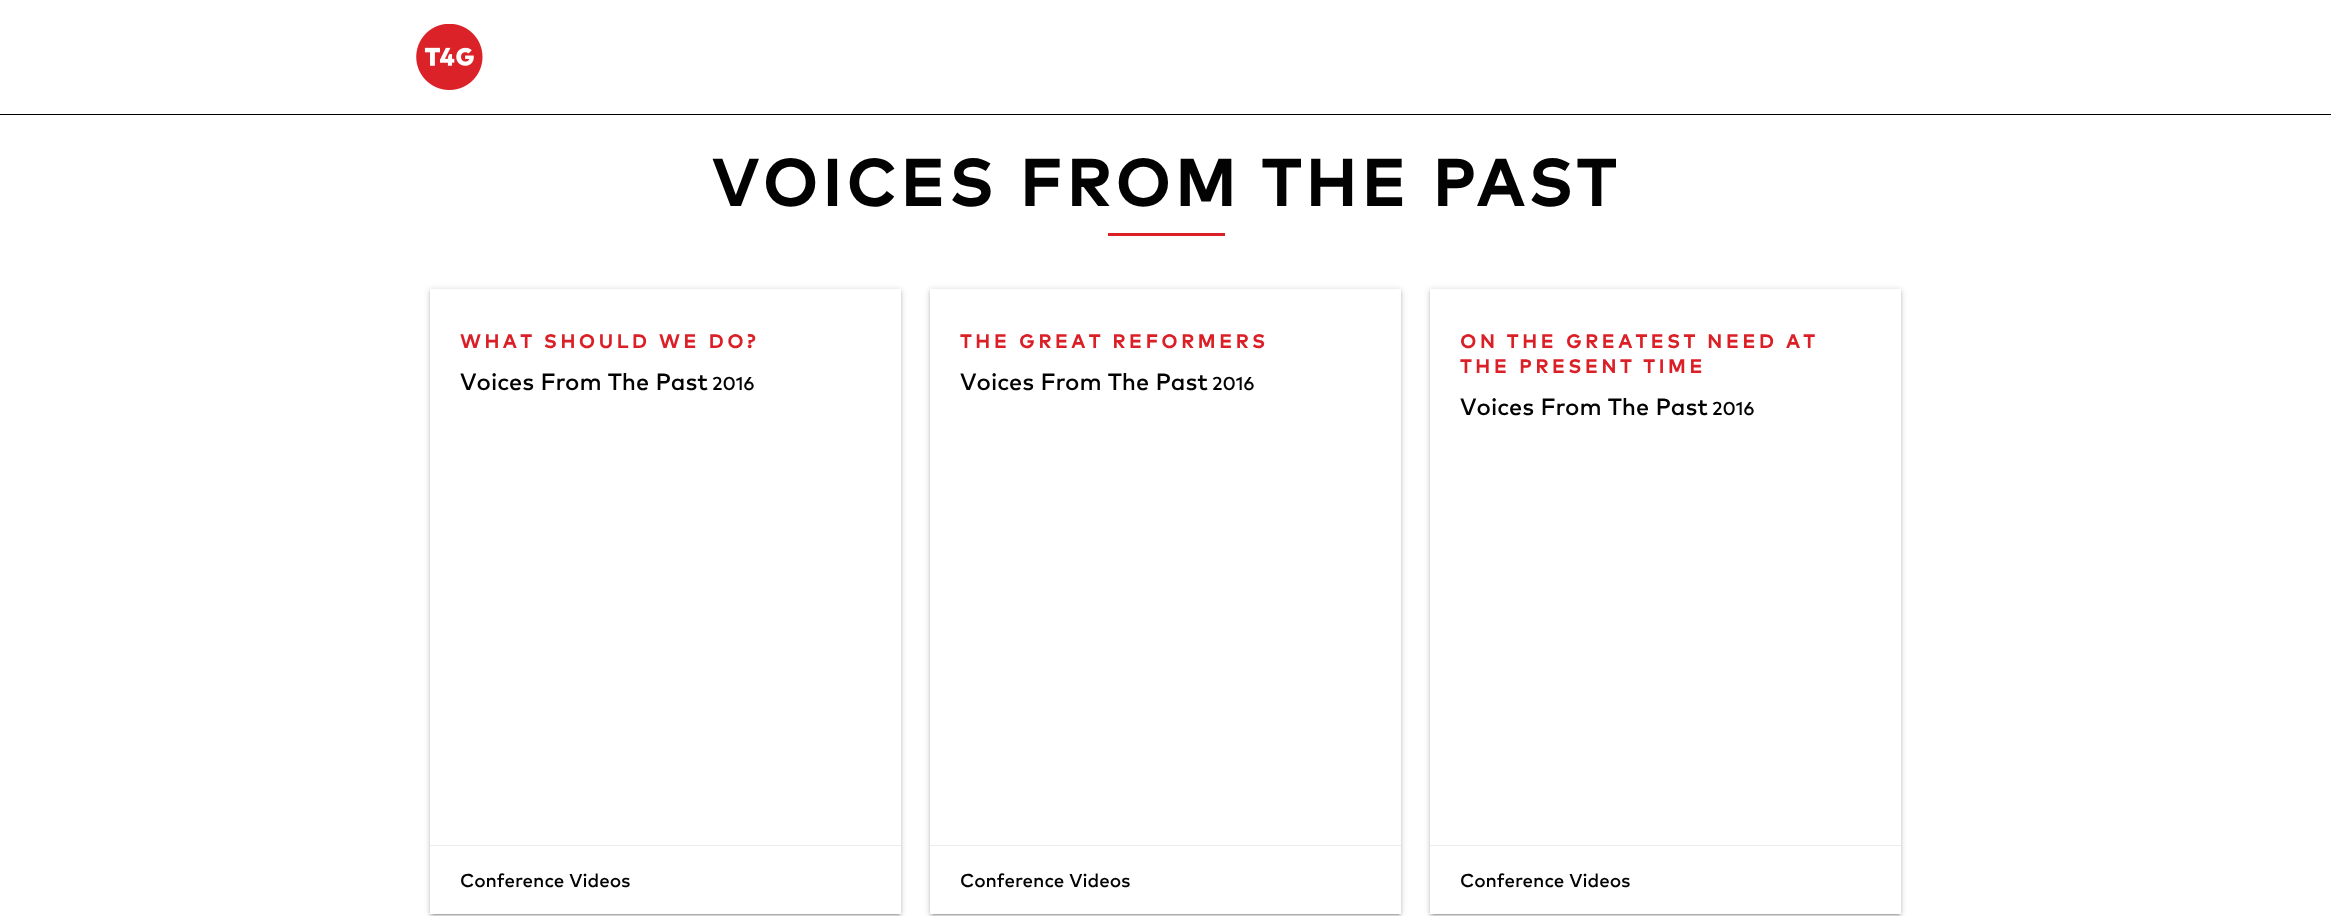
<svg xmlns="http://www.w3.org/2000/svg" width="2331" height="916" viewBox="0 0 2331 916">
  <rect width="100%" height="100%" fill="#fff"/>
  <path d="M0 114h2331v1H0z" fill="#000"/>
  <image x="416" y="24" width="67" height="66" href="img/1.png"/>
  <path d="M1108 233h117v3H1108z" fill="#db1f26"/>
  <path d="M430 290h471v625H430z" fill="#00000033" filter="blur(3px)"/>
  <path d="M433 295h466v620H433z" fill="#0000001f" filter="blur(0.5px)"/>
  <path d="M430 291h471v625H430z" fill="#00000024" filter="blur(1px)"/>
  <path d="M430 289h471v625H430z" fill="#fff"/>
  <path d="M430 845h471v1H430z" fill="#ececec"/>
  <path d="M930 290h471v625H930z" fill="#00000033" filter="blur(3px)"/>
  <path d="M933 295h466v620H933z" fill="#0000001f" filter="blur(0.5px)"/>
  <path d="M930 291h471v625H930z" fill="#00000024" filter="blur(1px)"/>
  <path d="M930 289h471v625H930z" fill="#fff"/>
  <path d="M930 845h471v1H930z" fill="#ececec"/>
  <path d="M1430 290h471v625H1430z" fill="#00000033" filter="blur(3px)"/>
  <path d="M1433 295h466v620H1433z" fill="#0000001f" filter="blur(0.5px)"/>
  <path d="M1430 291h471v625H1430z" fill="#00000024" filter="blur(1px)"/>
  <path d="M1430 289h471v625H1430z" fill="#fff"/>
  <path d="M1430 845h471v1H1430z" fill="#ececec"/>
  <text x="712" y="206" font-family="'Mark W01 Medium'" font-size="64.75" font-weight="bold" letter-spacing="4.6" fill="#020202">VOICES FROM THE PAST</text>
  <text x="460" y="348" font-family="'Mark W01 Medium'" font-size="18.75" font-weight="bold" letter-spacing="3.75" fill="#db1f26">WHAT SHOULD WE DO?</text>
  <text x="460" y="390" font-family="'Mark W01 Medium'" font-size="23.5" font-weight="500" fill="#020202">Voices From The Past</text>
  <g font-family="'Mark W01 Medium'" font-size="18.75" font-weight="500" fill="#020202">
    <text x="712" y="390">2016</text>
    <text x="460" y="887">Conference Videos</text>
  </g>
  <text x="960" y="348" font-family="'Mark W01 Medium'" font-size="18.75" font-weight="bold" letter-spacing="3.75" fill="#db1f26">THE GREAT REFORMERS</text>
  <text x="960" y="390" font-family="'Mark W01 Medium'" font-size="23.5" font-weight="500" fill="#020202">Voices From The Past</text>
  <g font-family="'Mark W01 Medium'" font-size="18.75" font-weight="500" fill="#020202">
    <text x="1212" y="390">2016</text>
    <text x="960" y="887">Conference Videos</text>
  </g>
  <g font-family="'Mark W01 Medium'" font-size="18.75" font-weight="bold" letter-spacing="3.75" fill="#db1f26">
    <text x="1460" y="348">ON THE GREATEST NEED AT</text>
    <text x="1460" y="373">THE PRESENT TIME</text>
  </g>
  <text x="1460" y="415" font-family="'Mark W01 Medium'" font-size="23.5" font-weight="500" fill="#020202">Voices From The Past</text>
  <g font-family="'Mark W01 Medium'" font-size="18.75" font-weight="500" fill="#020202">
    <text x="1712" y="415">2016</text>
    <text x="1460" y="887">Conference Videos</text>
  </g>
</svg>
